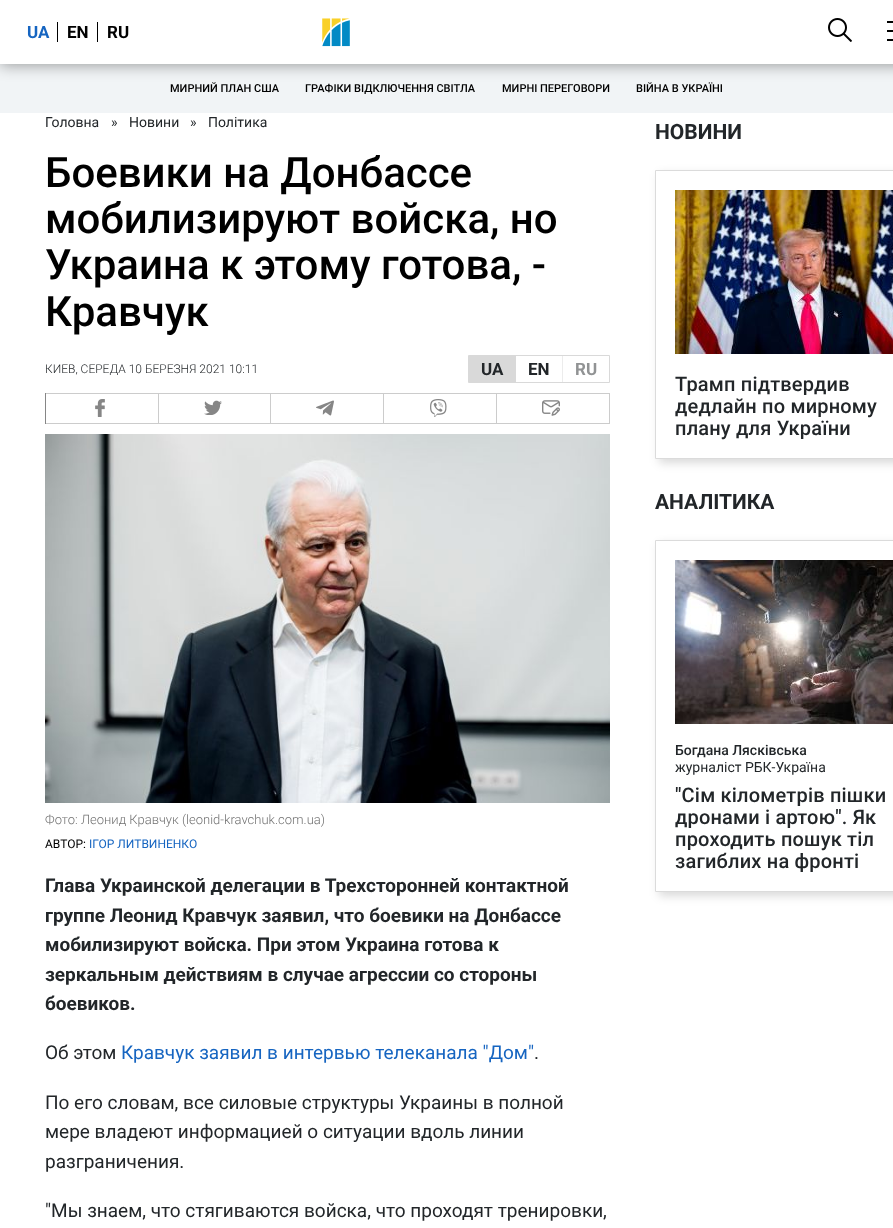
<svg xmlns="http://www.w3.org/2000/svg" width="893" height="1228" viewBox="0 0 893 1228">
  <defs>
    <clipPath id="clip1"><path d="M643 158H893V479H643ZM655 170H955V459H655Z" clip-rule="evenodd"/></clipPath>
    <clipPath id="clip2"><path d="M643 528H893V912H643ZM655 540H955V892H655Z" clip-rule="evenodd"/></clipPath>
  </defs>
  <rect width="100%" height="100%" fill="#fff"/>
  <path d="M0 64h893v49H0z" fill="#f1f4f6"/>
  <path d="M0 1h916v64H0z" fill="#00000061" filter="blur(7.5px)"/>
  <path d="M0 0h893v64H0z" fill="#fff"/>
  <path d="M57 22h1v20H57z" fill="#000"/>
  <path d="M97 22h1v20H97z" fill="#000"/>
  <image x="322" y="18" width="28" height="29" href="img/1.png"/>
  <image x="828" y="18" width="24" height="24" href="img/2.png"/>
  <path d="M887 21h6v2H887z" fill="#000"/>
  <path d="M887 30h6v2H887z" fill="#000"/>
  <path d="M887 39h6v2H887z" fill="#000"/>
  <path d="M468.5 355.5h141v27H468.5z" fill="none" stroke="#d9d9d9"/>
  <path d="M469 356h47v26H469z" fill="#d9d9d9"/>
  <path d="M562 356h1v26H562z" fill="#ececec"/>
  <path d="M45 393h565v1H45z" fill="#ccc"/>
  <path d="M158 393h1v31H158z" fill="#ccc"/>
  <path d="M45 423h114v1H45z" fill="#ccc"/>
  <path d="M45 393h1v31H45z" fill="#868686"/>
  <image x="95" y="399" width="10" height="18" href="img/3.png"/>
  <path d="M270 393h1v31H270z" fill="#ccc"/>
  <path d="M159 423h112v1H159z" fill="#ccc"/>
  <image x="204" y="400" width="18" height="15" href="img/4.png"/>
  <path d="M383 393h1v31H383z" fill="#ccc"/>
  <path d="M271 423h113v1H271z" fill="#ccc"/>
  <image x="316" y="400" width="18" height="16" href="img/5.png"/>
  <path d="M496 393h1v31H496z" fill="#ccc"/>
  <path d="M384 423h113v1H384z" fill="#ccc"/>
  <image x="430" y="399" width="17" height="18" href="img/6.png"/>
  <path d="M609 393h1v31H609z" fill="#ccc"/>
  <path d="M497 423h113v1H497z" fill="#ccc"/>
  <image x="542" y="400" width="18" height="16" href="img/7.png"/>
  <image x="45" y="434" width="565" height="369" href="img/8.png"/>
  <g clip-path="url(#clip1)">
    <path d="M659 174h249v289H659z" fill="#00000026" filter="blur(5px)"/>
  </g>
  <path d="M655.5 170.5h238v288H655.5z" fill="none" stroke="#dbdbdb"/>
  <image x="675" y="190" width="218" height="164" href="img/9.png"/>
  <g clip-path="url(#clip2)">
    <path d="M659 544h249v352H659z" fill="#00000026" filter="blur(5px)"/>
  </g>
  <path d="M655.5 540.5h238v351H655.5z" fill="none" stroke="#dbdbdb"/>
  <image x="675" y="560" width="218" height="164" href="img/10.png"/>
  <text x="27" y="38" font-family="Roboto" font-size="17" font-weight="bold" fill="#1665c1">UA</text>
  <g font-family="Roboto" font-size="17" font-weight="bold" fill="#000">
    <text x="67" y="38">EN</text>
    <text x="107" y="38">RU</text>
  </g>
  <g font-family="Roboto" font-size="11" font-weight="500" fill="#000">
    <text x="170" y="92">МИРНИЙ ПЛАН США</text>
    <text x="305" y="92">ГРАФІКИ ВІДКЛЮЧЕННЯ СВІТЛА</text>
    <text x="502" y="92">МИРНІ ПЕРЕГОВОРИ</text>
    <text x="636" y="92">ВІЙНА В УКРАЇНІ</text>
  </g>
  <g font-family="Roboto" font-size="14" fill="#222629">
    <text x="45" y="127">Головна</text>
    <text x="111" y="127">»</text>
    <text x="129" y="127">Новини</text>
    <text x="190" y="127">»</text>
    <text x="208" y="127">Політика</text>
  </g>
  <g font-family="Roboto" font-size="42" font-weight="500" fill="#000">
    <text x="45" y="187">Боевики на Донбассе</text>
    <text x="45" y="233">мобилизируют войска, но</text>
    <text x="45" y="279">Украина к этому готова, -</text>
    <text x="45" y="326">Кравчук</text>
  </g>
  <text x="45" y="373" font-family="Roboto" font-size="12" font-weight="300" fill="#222629">КИЕВ, СЕРЕДА 10 БЕРЕЗНЯ 2021 10:11</text>
  <g font-family="Roboto" font-size="17" font-weight="bold" fill="#222629">
    <text x="481" y="375">UA</text>
    <text x="528" y="375">EN</text>
  </g>
  <text x="575" y="375" font-family="Roboto" font-size="17" font-weight="bold" fill="#919394">RU</text>
  <text x="45" y="824" font-family="Roboto" font-size="13" font-weight="300" fill="#717171">Фото: Леонид Кравчук (leonid-kravchuk.com.ua)</text>
  <text x="45" y="848" font-family="Roboto" font-size="12" fill="#000">АВТОР:</text>
  <text x="89" y="848" font-family="Roboto" font-size="12" fill="#1665c1">ІГОР ЛИТВИНЕНКО</text>
  <g font-family="Roboto" font-size="19" font-weight="bold" fill="#222629">
    <text x="45" y="892">Глава Украинской делегации в Трехсторонней контактной</text>
    <text x="45" y="922">группе Леонид Кравчук заявил, что боевики на Донбассе</text>
    <text x="45" y="951">мобилизируют войска. При этом Украина готова к</text>
    <text x="45" y="981">зеркальным действиям в случае агрессии со стороны</text>
    <text x="45" y="1010">боевиков.</text>
  </g>
  <text x="45" y="1059" font-family="Roboto" font-size="19" fill="#222629">Об этом</text>
  <text x="121" y="1059" font-family="Roboto" font-size="19" fill="#1665c1">Кравчук заявил в интервью телеканала "Дом"</text>
  <g font-family="Roboto" font-size="19" fill="#222629">
    <text x="534" y="1059">.</text>
    <text x="45" y="1109">По его словам, все силовые структуры Украины в полной</text>
    <text x="45" y="1138">мере владеют информацией о ситуации вдоль линии</text>
    <text x="45" y="1168">разграничения.</text>
    <text x="45" y="1217">"Мы знаем, что стягиваются войска, что проходят тренировки,</text>
  </g>
  <text x="655" y="139" font-family="Roboto" font-size="21" font-weight="bold" fill="#222629">НОВИНИ</text>
  <g font-family="Roboto" font-size="20" font-weight="500" letter-spacing="0.2" fill="#222629">
    <text x="675" y="391">Трамп підтвердив</text>
    <text x="675" y="413">дедлайн по мирному</text>
    <text x="675" y="435">плану для України</text>
  </g>
  <text x="655" y="509" font-family="Roboto" font-size="21" font-weight="bold" fill="#222629">АНАЛІТИКА</text>
  <text x="675" y="755" font-family="Roboto" font-size="14" font-weight="500" fill="#222629">Богдана Лясківська</text>
  <text x="675" y="772" font-family="Roboto" font-size="14" fill="#222629">журналіст РБК-Україна</text>
  <g font-family="Roboto" font-size="20" font-weight="500" letter-spacing="0.2" fill="#222629">
    <text x="675" y="802">"Сім кілометрів пішки</text>
    <text x="675" y="824">дронами і артою". Як</text>
    <text x="675" y="846">проходить пошук тіл</text>
    <text x="675" y="868">загиблих на фронті</text>
  </g>
</svg>
